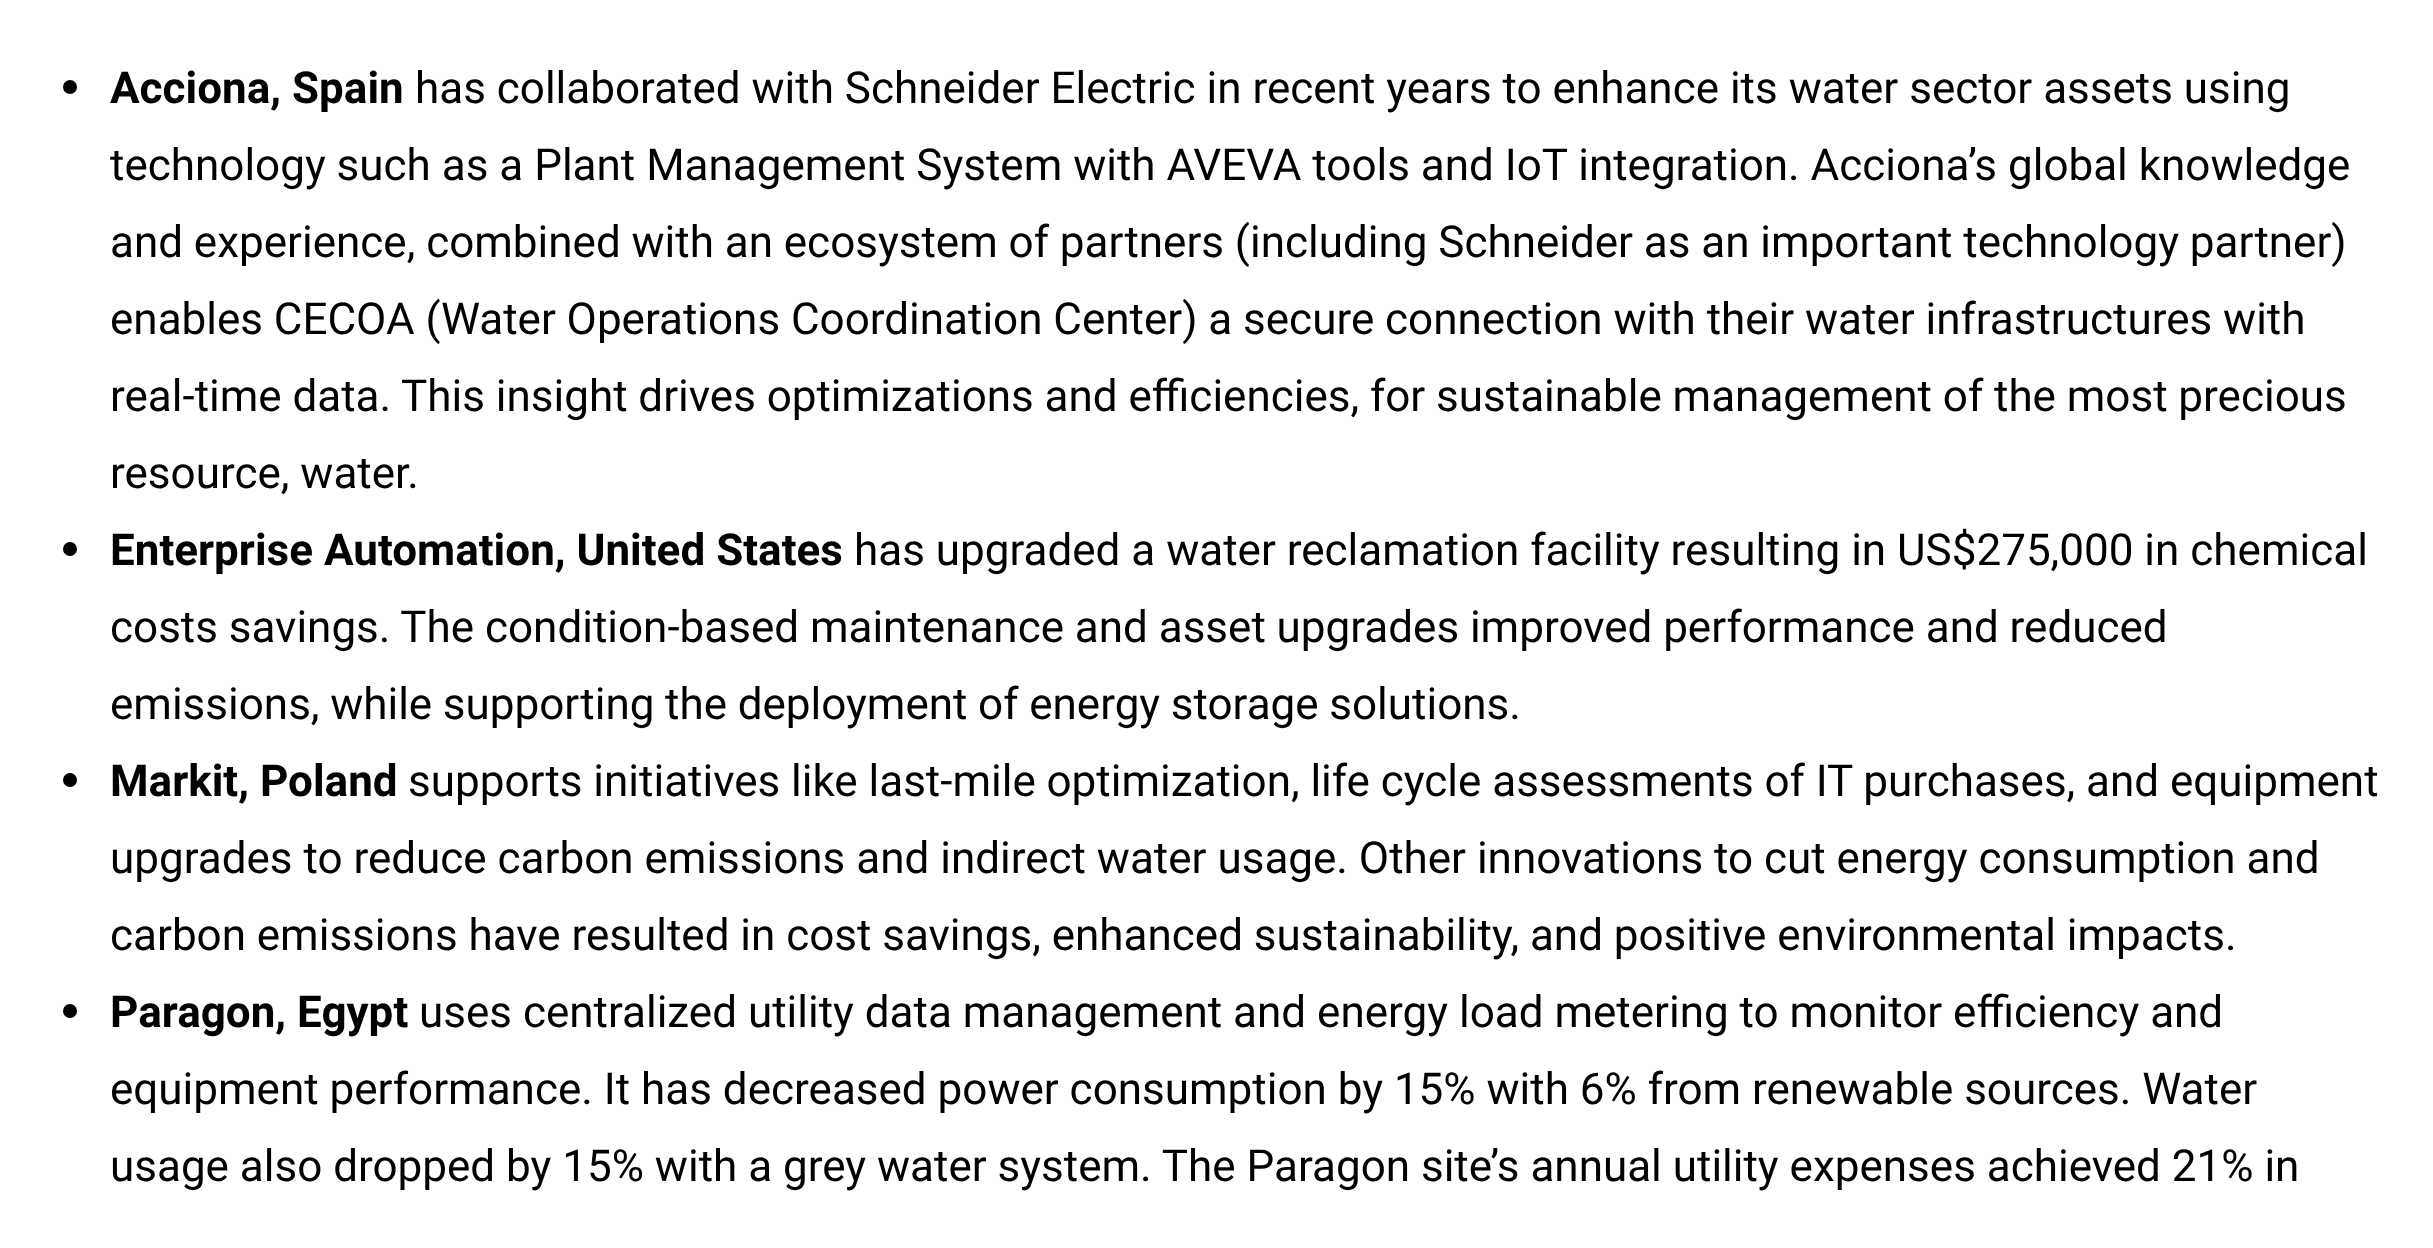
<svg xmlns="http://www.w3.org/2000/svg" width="2433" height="1248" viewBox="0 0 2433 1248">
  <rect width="100%" height="100%" fill="#fff"/>
  <circle cx="70" cy="87" r="7" fill="#000"/>
  <circle cx="70" cy="549" r="7" fill="#000"/>
  <circle cx="70" cy="780" r="7" fill="#000"/>
  <circle cx="70" cy="1011" r="7" fill="#000"/>
  <text x="110" y="103" font-family="Roboto" font-size="44" font-weight="bold" fill="#000">Acciona, Spain</text>
  <g font-family="Roboto" font-size="44" fill="#000">
    <text x="415" y="103">has collaborated with Schneider Electric in recent years to enhance its water sector assets using</text>
    <text x="110" y="180">technology such as a Plant Management System with AVEVA tools and IoT integration. Acciona’s global knowledge</text>
    <text x="110" y="257" word-spacing="-0.1">and experience, combined with an ecosystem of partners (including Schneider as an important technology partner)</text>
    <text x="110" y="334" word-spacing="-0.1">enables CECOA (Water Operations Coordination Center) a secure connection with their water infrastructures with</text>
    <text x="110" y="411" word-spacing="-0.1">real-time data. This insight drives optimizations and efficiencies, for sustainable management of the most precious</text>
    <text x="110" y="488">resource, water.</text>
  </g>
  <text x="110" y="565" font-family="Roboto" font-size="44" font-weight="bold" fill="#000">Enterprise Automation, United States</text>
  <g font-family="Roboto" font-size="44" fill="#000">
    <text x="854" y="565">has upgraded a water reclamation facility resulting in US$275,000 in chemical</text>
    <text x="110" y="642" word-spacing="-0.1">costs savings. The condition-based maintenance and asset upgrades improved performance and reduced</text>
    <text x="110" y="719" word-spacing="-0.25">emissions, while supporting the deployment of energy storage solutions.</text>
  </g>
  <text x="110" y="796" font-family="Roboto" font-size="44" font-weight="bold" fill="#000">Markit, Poland</text>
  <g font-family="Roboto" font-size="44" fill="#000">
    <text x="408" y="796" word-spacing="-0.1">supports initiatives like last-mile optimization, life cycle assessments of IT purchases, and equipment</text>
    <text x="110" y="873">upgrades to reduce carbon emissions and indirect water usage. Other innovations to cut energy consumption and</text>
    <text x="110" y="950" word-spacing="-0.1">carbon emissions have resulted in cost savings, enhanced sustainability, and positive environmental impacts.</text>
  </g>
  <text x="110" y="1027" font-family="Roboto" font-size="44" font-weight="bold" fill="#000">Paragon, Egypt</text>
  <g font-family="Roboto" font-size="44" fill="#000">
    <text x="419" y="1027">uses centralized utility data management and energy load metering to monitor efficiency and</text>
    <text x="110" y="1104">equipment performance. It has decreased power consumption by 15% with 6% from renewable sources. Water</text>
    <text x="110" y="1181">usage also dropped by 15% with a grey water system. The Paragon site’s annual utility expenses achieved 21% in</text>
  </g>
</svg>
